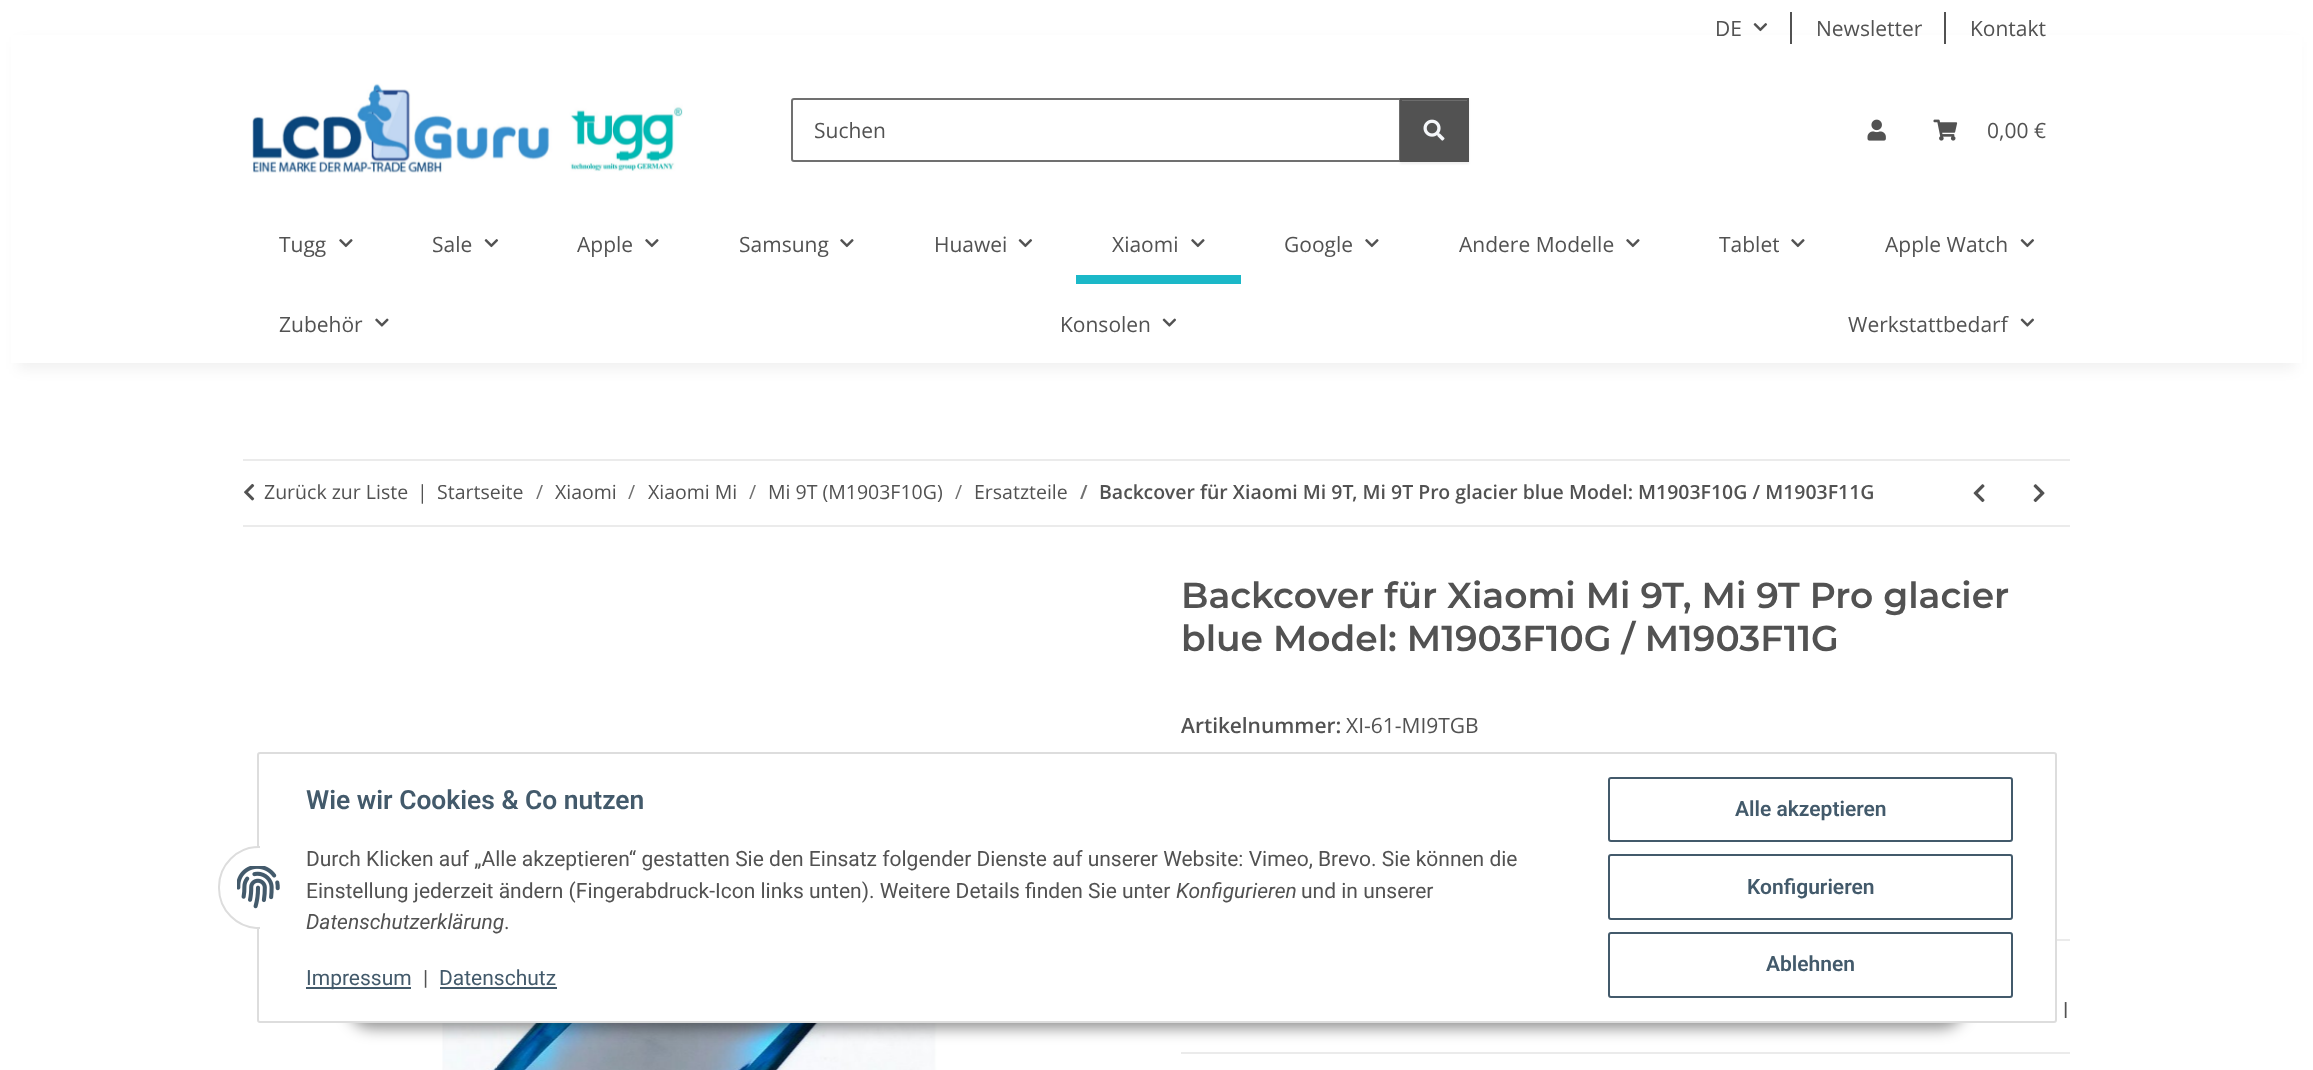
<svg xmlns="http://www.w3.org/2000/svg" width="2313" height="1070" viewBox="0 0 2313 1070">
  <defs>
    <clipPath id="clip1"><path d="M1719 228h60v32H1719z"/></clipPath>
  </defs>
  <rect width="100%" height="100%" fill="#fff"/>
  <path d="M18 42h2277v327H18z" fill="#0000000f" filter="blur(7px)"/>
  <path d="M11 35h2291v328H11z" fill="#fff"/>
  <image x="1753" y="23" width="15" height="9" href="img/1.png"/>
  <path d="M1790 12h2v32H1790z" fill="#525252"/>
  <path d="M1944 12h2v32H1944z" fill="#525252"/>
  <image x="252" y="83" width="431" height="90" href="img/2.png"/>
  <path d="M794 99H1400V161H794C793 161 792 160 792 159V101C792 100 793 99 794 99Z" fill="none" stroke="#707070" stroke-width="2"/>
  <path d="M1400 99h69v65H1400z" fill="#00000012" filter="blur(1px)"/>
  <path d="M1402 101h65v59H1402z" fill="#525252"/>
  <path d="M1401 100h66v1H1401z" fill="#6c6c6c"/>
  <path d="M1401 99h67v62H1401z" fill="none" stroke="#525252" stroke-width="2"/>
  <image x="1423" y="119" width="22" height="22" href="img/3.png"/>
  <image x="1867" y="119" width="19" height="22" href="img/4.png"/>
  <image x="1933" y="119" width="25" height="22" href="img/5.png"/>
  <image x="339" y="239" width="14" height="9" href="img/6.png"/>
  <image x="484" y="239" width="15" height="9" href="img/1.png"/>
  <image x="645" y="239" width="14" height="9" href="img/6.png"/>
  <image x="840" y="239" width="14" height="9" href="img/6.png"/>
  <image x="1018" y="239" width="15" height="9" href="img/1.png"/>
  <image x="1191" y="239" width="14" height="9" href="img/6.png"/>
  <path d="M1076 275h165v9H1076z" fill="#1bb8c8"/>
  <image x="1365" y="239" width="14" height="9" href="img/6.png"/>
  <image x="1626" y="239" width="14" height="9" href="img/6.png"/>
  <image x="1791" y="239" width="14" height="9" href="img/6.png"/>
  <image x="2020" y="239" width="15" height="9" href="img/1.png"/>
  <image x="375" y="318" width="14" height="9" href="img/7.png"/>
  <image x="1162" y="318" width="14" height="9" href="img/8.png"/>
  <image x="2020" y="318" width="14" height="9" href="img/8.png"/>
  <path d="M243 459h1827v2H243z" fill="#ebebeb"/>
  <path d="M243 525h1827v2H243z" fill="#ebebeb"/>
  <image x="244" y="483" width="11" height="18" href="img/9.png"/>
  <image x="1973" y="484" width="12" height="19" href="img/10.png"/>
  <image x="2033" y="484" width="12" height="19" href="img/11.png"/>
  <path d="M2057 939h13v2H2057z" fill="#ebebeb"/>
  <path d="M1181 1052h889v2H1181z" fill="#ebebeb"/>
  <image x="442" y="1023" width="495" height="47" href="img/12.png"/>
  <rect x="348" y="980" width="1617" height="48" rx="24" fill="#00000073" filter="blur(7.5px)"/>
  <rect x="258" y="753" width="1798" height="269" rx="2" fill="#fff" stroke="#ddd" stroke-width="2"/>
  <rect x="219" y="847" width="80" height="81" rx="40" fill="#fff" stroke="#ddd" stroke-width="2"/>
  <path d="M260 846h40v83H260z" fill="#fff"/>
  <image x="237" y="866" width="43" height="43" href="img/13.png"/>
  <path d="M306 987h105v2H306z" fill="#435a6b"/>
  <path d="M440 987h117v2H440z" fill="#435a6b"/>
  <rect x="1609" y="778" width="403" height="63" rx="2" fill="none" stroke="#435a6b" stroke-width="2"/>
  <rect x="1609" y="855" width="403" height="64" rx="2" fill="none" stroke="#435a6b" stroke-width="2"/>
  <rect x="1609" y="933" width="403" height="64" rx="2" fill="none" stroke="#435a6b" stroke-width="2"/>
  <g font-family="Open Sans" font-size="21" fill="#525252">
    <text x="1715" y="36">DE</text>
    <text x="1816" y="36">Newsletter</text>
    <text x="1970" y="36">Kontakt</text>
    <text x="814" y="138">Suchen</text>
    <text x="1987" y="138">0,00 €</text>
    <text x="279" y="252">Tugg</text>
    <text x="432" y="252">Sale</text>
    <text x="577" y="252">Apple</text>
    <text x="739" y="252">Samsung</text>
    <text x="934" y="252">Huawei</text>
    <text x="1112" y="252">Xiaomi</text>
    <text x="1284" y="252">Google</text>
    <text x="1459" y="252">Andere Modelle</text>
  </g>
  <g clip-path="url(#clip1)">
    <text x="1719" y="252" font-family="Open Sans" font-size="21" fill="#525252">Tablet</text>
  </g>
  <g font-family="Open Sans" font-size="21" fill="#525252">
    <text x="1885" y="252">Apple Watch</text>
    <text x="279" y="332">Zubehör</text>
    <text x="1060" y="332">Konsolen</text>
    <text x="1848" y="332">Werkstattbedarf</text>
  </g>
  <g font-family="Open Sans" font-size="19.5" fill="#525252">
    <text x="264" y="499">Zurück zur Liste</text>
    <text x="417" y="499">|</text>
    <text x="437" y="499">Startseite</text>
  </g>
  <text x="536" y="499" font-family="Open Sans" font-size="19.5" fill="#707070">/</text>
  <text x="555" y="499" font-family="Open Sans" font-size="19.5" fill="#525252">Xiaomi</text>
  <text x="628" y="499" font-family="Open Sans" font-size="19.5" fill="#707070">/</text>
  <text x="648" y="499" font-family="Open Sans" font-size="19.5" fill="#525252">Xiaomi Mi</text>
  <text x="749" y="499" font-family="Open Sans" font-size="19.5" fill="#707070">/</text>
  <text x="768" y="499" font-family="Open Sans" font-size="19.5" fill="#525252">Mi 9T (M1903F10G)</text>
  <text x="955" y="499" font-family="Open Sans" font-size="19.5" fill="#707070">/</text>
  <text x="974" y="499" font-family="Open Sans" font-size="19.5" fill="#525252">Ersatzteile</text>
  <text x="1080" y="499" font-family="Open Sans" font-size="19.5" font-weight="600" fill="#707070">/</text>
  <text x="1099" y="499" font-family="Open Sans" font-size="19.5" font-weight="600" fill="#525252">Backcover für Xiaomi Mi 9T, Mi 9T Pro glacier blue Model: M1903F10G / M1903F11G</text>
  <g font-family="Montserrat" font-size="36" font-weight="600" fill="#525252">
    <text x="1181" y="608">Backcover für Xiaomi Mi 9T, Mi 9T Pro glacier</text>
    <text x="1181" y="651">blue Model: M1903F10G / M1903F11G</text>
  </g>
  <text x="1181" y="733" font-family="Open Sans" font-size="21" font-weight="600" fill="#525252">Artikelnummer:</text>
  <g font-family="Open Sans" font-size="21" fill="#525252">
    <text x="1346" y="733">XI-61-MI9TGB</text>
    <text x="2063" y="1018">l</text>
  </g>
  <text x="306" y="809" font-family="Roboto" font-size="26.4" font-weight="600" fill="#435a6b">Wie wir Cookies &amp; Co nutzen</text>
  <g font-family="Roboto" font-size="21" fill="#525252">
    <text x="306" y="866">Durch Klicken auf „Alle akzeptieren“ gestatten Sie den Einsatz folgender Dienste auf unserer Website: Vimeo, Brevo. Sie können die</text>
    <text x="306" y="898">Einstellung jederzeit ändern (Fingerabdruck-Icon links unten). Weitere Details finden Sie unter</text>
  </g>
  <text x="1176" y="898" font-family="Roboto" font-size="21" font-style="italic" fill="#525252">Konfigurieren</text>
  <text x="1301" y="898" font-family="Roboto" font-size="21" fill="#525252">und in unserer</text>
  <text x="306" y="929" font-family="Roboto" font-size="21" font-style="italic" fill="#525252">Datenschutzerklärung</text>
  <text x="504" y="929" font-family="Roboto" font-size="21" fill="#525252">.</text>
  <text x="306" y="985" font-family="Roboto" font-size="21" fill="#435a6b">Impressum</text>
  <text x="423" y="985" font-family="Roboto" font-size="21" fill="#525252">|</text>
  <text x="439" y="985" font-family="Roboto" font-size="21" fill="#435a6b">Datenschutz</text>
  <g font-family="Roboto" font-size="21" font-weight="600" fill="#435a6b">
    <text x="1735" y="816">Alle akzeptieren</text>
    <text x="1747" y="894">Konfigurieren</text>
    <text x="1766" y="971">Ablehnen</text>
  </g>
</svg>
